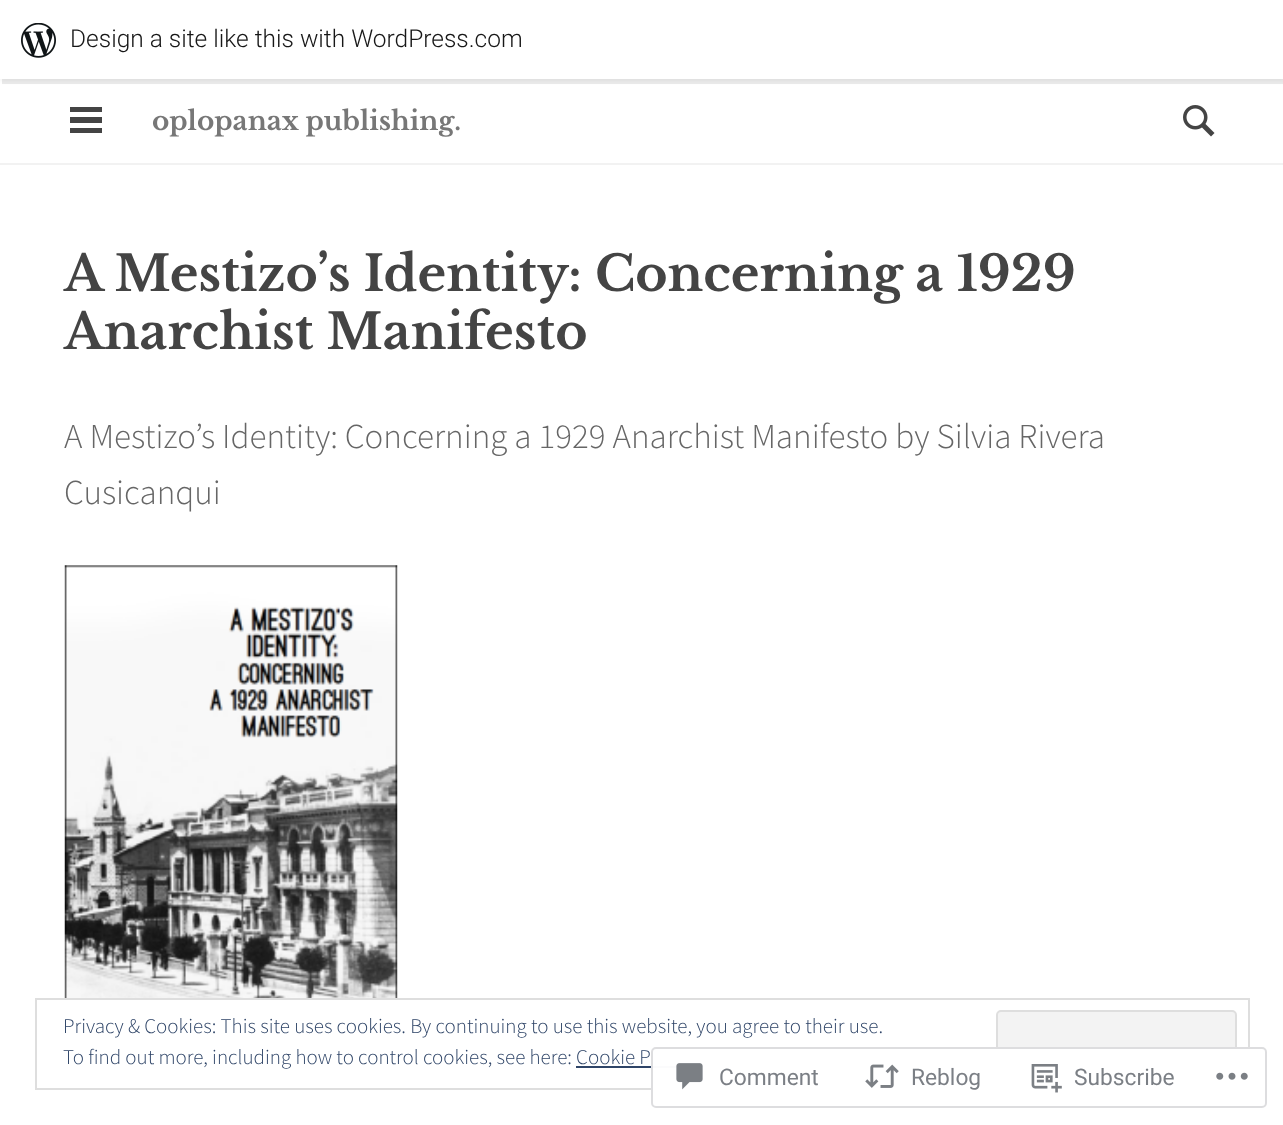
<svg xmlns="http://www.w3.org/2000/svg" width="1283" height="1125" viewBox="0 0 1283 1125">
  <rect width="100%" height="100%" fill="#fff"/>
  <path d="M0 2h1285v79H0z" fill="#0000000d" filter="blur(2px)"/>
  <path d="M2 79V84H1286V5H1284V79Z" fill="#00000014"/>
  <path d="M0 0h1283v79H0z" fill="#fff"/>
  <image x="21" y="23" width="35" height="35" href="img/1.png"/>
  <path d="M0 163h1283v2H0z" fill="#f2f2f2"/>
  <path d="M70 107h32v5H70z" fill="#444"/>
  <path d="M70 117h32v6H70z" fill="#444"/>
  <path d="M70 128h32v5H70z" fill="#444"/>
  <image x="1183" y="105" width="32" height="32" href="img/2.png"/>
  <image x="64" y="565" width="334" height="433" href="img/3.png"/>
  <path d="M36 999h1213v90H36z" fill="none" stroke="#dedede" stroke-width="2"/>
  <rect x="997" y="1011" width="239" height="66" rx="4" fill="#f3f3f3" stroke="#dedede" stroke-width="2"/>
  <path d="M576 1066h114v2H576z" fill="#2e4467"/>
  <rect x="651" y="1047" width="616" height="61" rx="5" fill="#fffffffa"/>
  <rect x="652" y="1048" width="614" height="59" rx="4" fill="none" stroke="#dcdcdefa" stroke-width="2"/>
  <image x="676" y="1063" width="27" height="27" href="img/4.png"/>
  <image x="865" y="1064" width="34" height="24" href="img/5.png"/>
  <image x="1031" y="1064" width="31" height="29" href="img/6.png"/>
  <image x="1216" y="1072" width="32" height="8" href="img/7.png"/>
  <text x="70" y="47" font-family="Roboto" font-size="24.5" font-weight="300" fill="#171717">Design a site like this with WordPress.com</text>
  <text x="152" y="130" font-family="Libre Baskerville" font-size="26.25" font-weight="bold" fill="#777">oplopanax publishing.</text>
  <g font-family="Libre Baskerville" font-size="49" font-weight="bold" fill="#444">
    <text x="64" y="291">A Mestizo’s Identity: Concerning a 1929</text>
    <text x="64" y="349">Anarchist Manifesto</text>
  </g>
  <g font-family="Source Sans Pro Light" font-size="35" font-weight="300" fill="#666">
    <text x="64" y="448">A Mestizo’s Identity: Concerning a 1929 Anarchist Manifesto by Silvia Rivera</text>
    <text x="64" y="504">Cusicanqui</text>
  </g>
  <g font-family="Source Sans Pro Light" font-size="21" font-weight="300" fill="#2e4467">
    <text x="63" y="1033">Privacy &amp; Cookies: This site uses cookies. By continuing to use this website, you agree to their use.</text>
    <text x="63" y="1064">To find out more, including how to control cookies, see here: Cookie P</text>
  </g>
  <g font-family="Roboto" font-size="22.75" fill="#7b7f85">
    <text x="719" y="1085">Comment</text>
    <text x="911" y="1085">Reblog</text>
    <text x="1074" y="1085">Subscribe</text>
  </g>
</svg>
